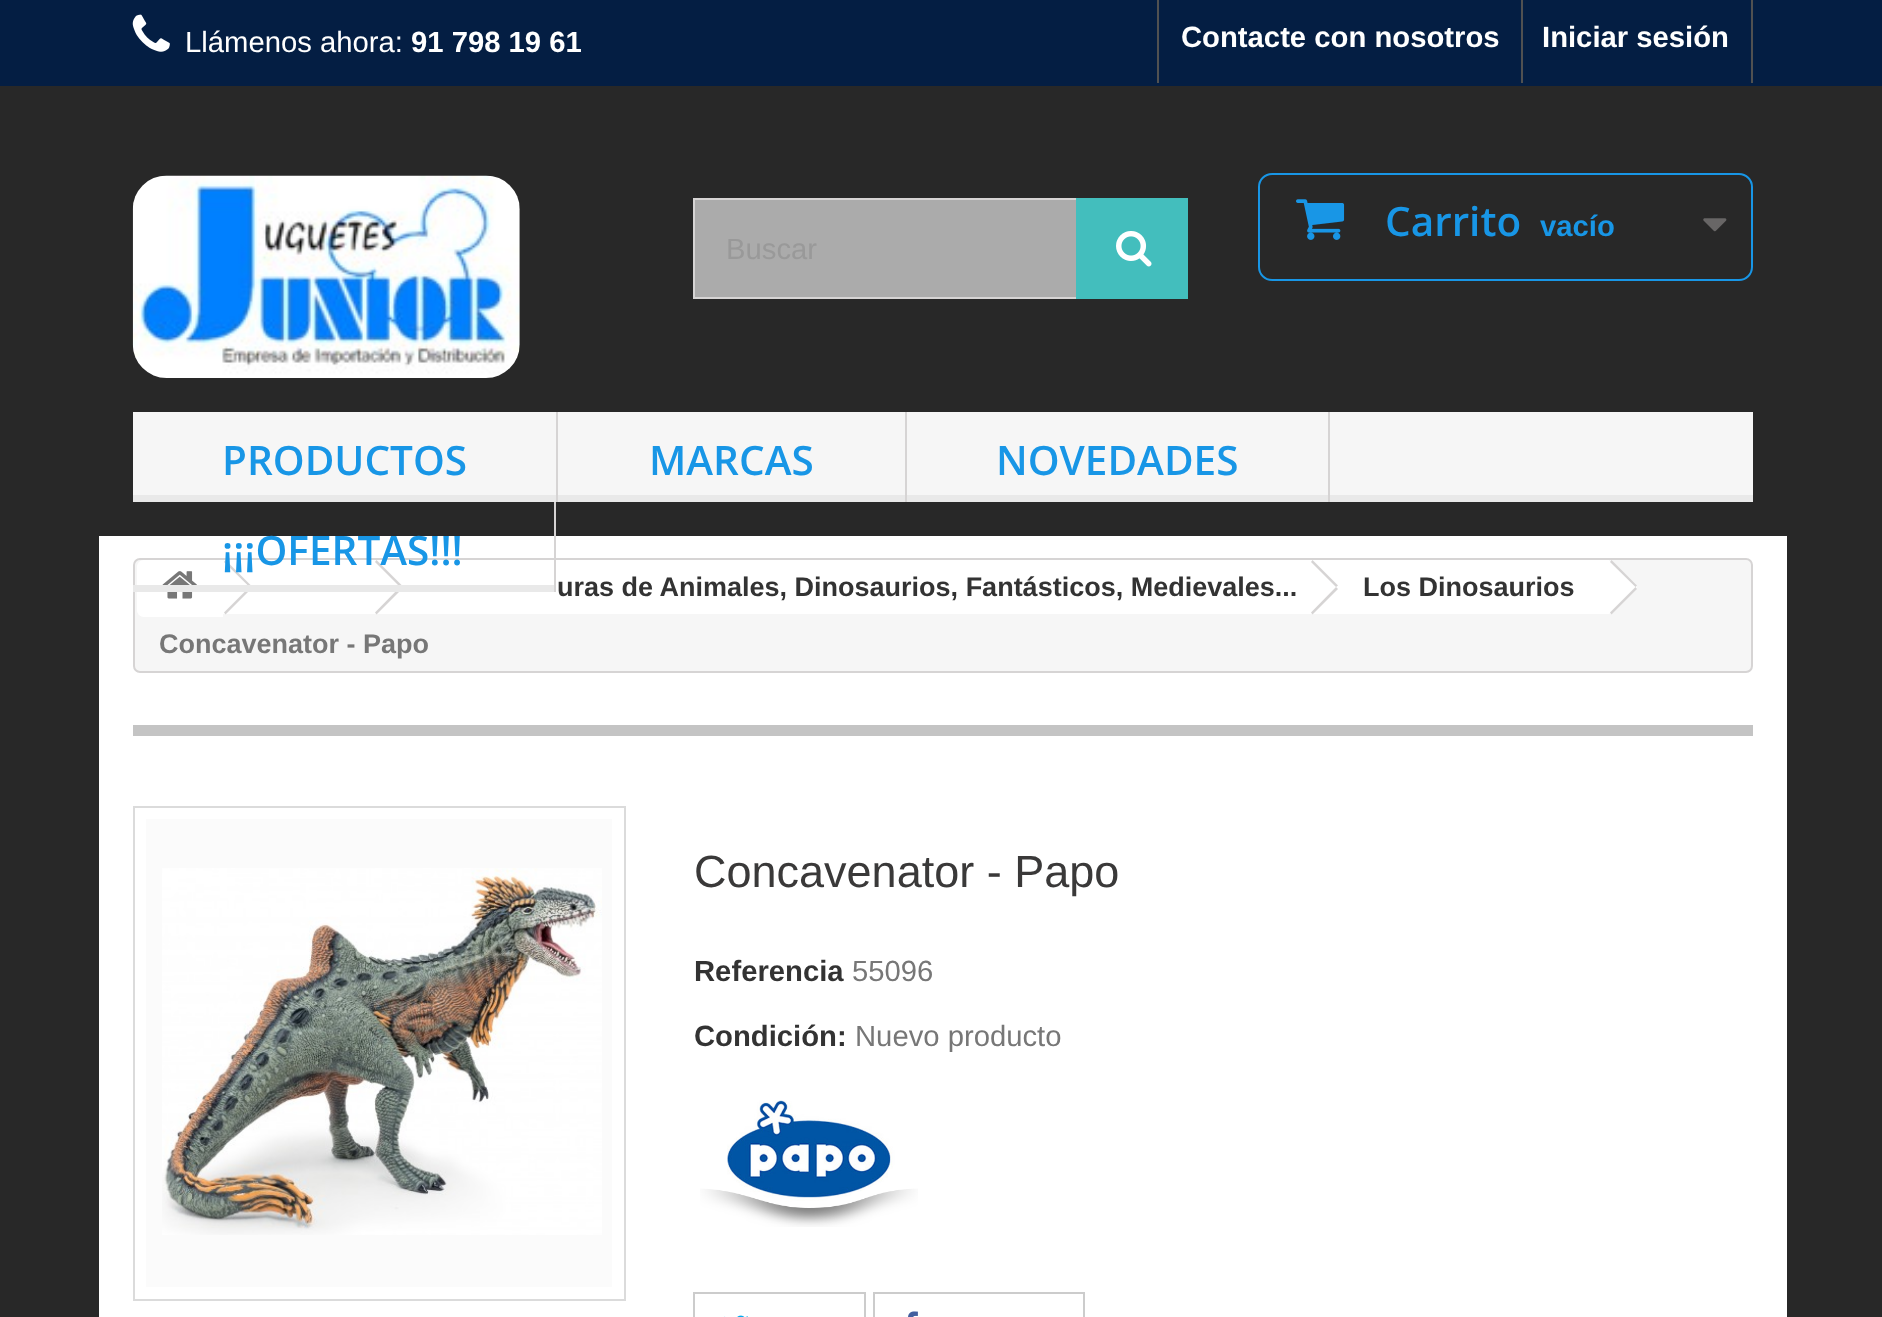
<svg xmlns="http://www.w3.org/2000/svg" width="1882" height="1317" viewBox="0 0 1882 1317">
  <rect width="100%" height="100%" fill="#282828"/>
  <path d="M0 0h1882v86H0z" fill="#041e43"/>
  <image x="132" y="14" width="38" height="38" href="img/1.png"/>
  <path d="M1157 0h2v83H1157z" fill="#515151"/>
  <path d="M1751 0h2v83H1751z" fill="#515151"/>
  <path d="M1521 0h2v83H1521z" fill="#515151"/>
  <image x="132" y="175" width="388" height="203" href="img/2.png"/>
  <rect x="1259" y="174" width="493" height="106" rx="13" fill="none" stroke="#1896e6" stroke-width="2"/>
  <image x="1296" y="199" width="49" height="41" href="img/3.png"/>
  <image x="1703" y="218" width="24" height="14" href="img/4.png"/>
  <path d="M695 200h381v97H695z" fill="#ababab"/>
  <path d="M694 199h493v99H694z" fill="none" stroke="#d6d4d4" stroke-width="2"/>
  <path d="M1076 198h112v101H1076z" fill="#43bebd"/>
  <image x="1116" y="231" width="36" height="36" href="img/5.png"/>
  <path d="M133 412h1620v83H133z" fill="#f6f6f6"/>
  <path d="M133 495h1620v7H133z" fill="#e9e9e9"/>
  <path d="M556 412h2v90H556z" fill="#d6d4d4"/>
  <path d="M905 412h2v90H905z" fill="#d6d4d4"/>
  <path d="M1328 412h2v90H1328z" fill="#d6d4d4"/>
  <path d="M99 536h1688v781H99z" fill="#fff"/>
  <rect x="134" y="559" width="1618" height="113" rx="6" fill="#f6f6f6" stroke="#d6d4d4" stroke-width="2"/>
  <path d="M223 560h155v54H223z" fill="#fff"/>
  <path d="M400 562L423 584C424 586 424 589 423 590L400 613C399 614 396 614 394 613L372 590C370 589 370 586 372 584L394 562C396 560 399 560 400 562Z" fill="#fff"/>
  <path d="M378 560h936v54H378z" fill="#fff"/>
  <path d="M554 502h2v90H554z" fill="#d6d4d4"/>
  <path d="M144 560H223V617H144C140 617 137 614 137 610V567C137 563 140 560 144 560Z" fill="#fff"/>
  <image x="162" y="571" width="35" height="28" href="img/6.png"/>
  <path d="M225.5 560L251 585.5L249.5 587L224 562ZM249.5 587L251 589L225.5 614.5L224 612.5Z" fill="#d6d4d4"/>
  <path d="M376.5 560L402 585.5L400 587L375 562ZM400 587L402 589L376.5 614.5L375 612.5Z" fill="#d6d4d4"/>
  <path d="M133 585h421v7H133z" fill="#e9e9e9"/>
  <path d="M1336 562L1359 584C1360 586 1360 589 1359 590L1336 613C1335 614 1332 614 1330 613L1308 590C1306 589 1306 586 1308 584L1330 562C1332 560 1335 560 1336 562Z" fill="#fff"/>
  <path d="M1314 560h295v54H1314z" fill="#fff"/>
  <path d="M1312.5 560L1338 585.5L1336 587L1311 562ZM1336 587L1338 589L1312.5 614.5L1311 612.5Z" fill="#d6d4d4"/>
  <path d="M1613 562L1636 584C1637 586 1637 589 1636 590L1613 613C1611 614 1609 614 1607 613L1585 590C1583 589 1583 586 1585 584L1607 562C1609 560 1611 560 1613 562Z" fill="#fff"/>
  <path d="M1611.5 560L1637 585.5L1635.5 587L1610 562ZM1635.5 587L1637 589L1611.5 614.5L1610 612.5Z" fill="#d6d4d4"/>
  <path d="M133 725h1620v11H133z" fill="#c4c4c4"/>
  <path d="M134 807h491v493H134z" fill="none" stroke="#dbdbdb" stroke-width="2"/>
  <path d="M146 819h466v468H146z" fill="#fbfbfb"/>
  <image x="162" y="868" width="440" height="367" href="img/7.png"/>
  <image x="700" y="1100" width="218" height="127" href="img/8.png"/>
  <path d="M694 1293h171v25H694z" fill="none" stroke="#ccc" stroke-width="2"/>
  <image x="724" y="1315" width="24" height="2" href="img/9.png"/>
  <path d="M874 1293h210v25H874z" fill="none" stroke="#ccc" stroke-width="2"/>
  <image x="908" y="1311" width="10" height="6" href="img/10.png"/>
  <text x="185" y="52" font-family="Liberation Sans" font-size="29.25" fill="#fff">Llámenos ahora:</text>
  <g font-family="Liberation Sans" font-size="29.25" font-weight="bold" fill="#fff">
    <text x="411" y="52">91 798 19 61</text>
    <text x="1181" y="47">Contacte con nosotros</text>
    <text x="1542" y="47">Iniciar sesión</text>
  </g>
  <text x="1385" y="236" font-family="Open Sans" font-size="40.5" font-weight="600" fill="#1896e6">Carrito</text>
  <text x="1540" y="236" font-family="Liberation Sans" font-size="29.25" font-weight="bold" fill="#1896e6">vacío</text>
  <text x="726" y="259" font-family="Liberation Sans" font-size="29.25" fill="#999">Buscar</text>
  <g font-family="Open Sans" font-size="40.5" font-weight="600" fill="#1896e6">
    <text x="222" y="475">PRODUCTOS</text>
    <text x="649" y="475">MARCAS</text>
    <text x="996" y="475">NOVEDADES</text>
    <text x="222" y="565">¡¡¡OFERTAS!!!</text>
  </g>
  <g font-family="Liberation Sans" font-size="27" font-weight="bold" fill="#333">
    <text x="557" y="596">uras de Animales, Dinosaurios, Fantásticos, Medievales...</text>
    <text x="1363" y="596">Los Dinosaurios</text>
  </g>
  <text x="159" y="653" font-family="Liberation Sans" font-size="27" font-weight="bold" fill="#777">Concavenator - Papo</text>
  <text x="694" y="887" font-family="Liberation Sans" font-size="45" fill="#3a3939">Concavenator - Papo</text>
  <text x="694" y="981" font-family="Liberation Sans" font-size="29.25" font-weight="bold" fill="#333">Referencia</text>
  <text x="852" y="981" font-family="Liberation Sans" font-size="29.25" fill="#777">55096</text>
  <text x="694" y="1046" font-family="Liberation Sans" font-size="29.25" font-weight="bold" fill="#333">Condición:</text>
  <text x="855" y="1046" font-family="Liberation Sans" font-size="29.25" fill="#777">Nuevo producto</text>
</svg>
